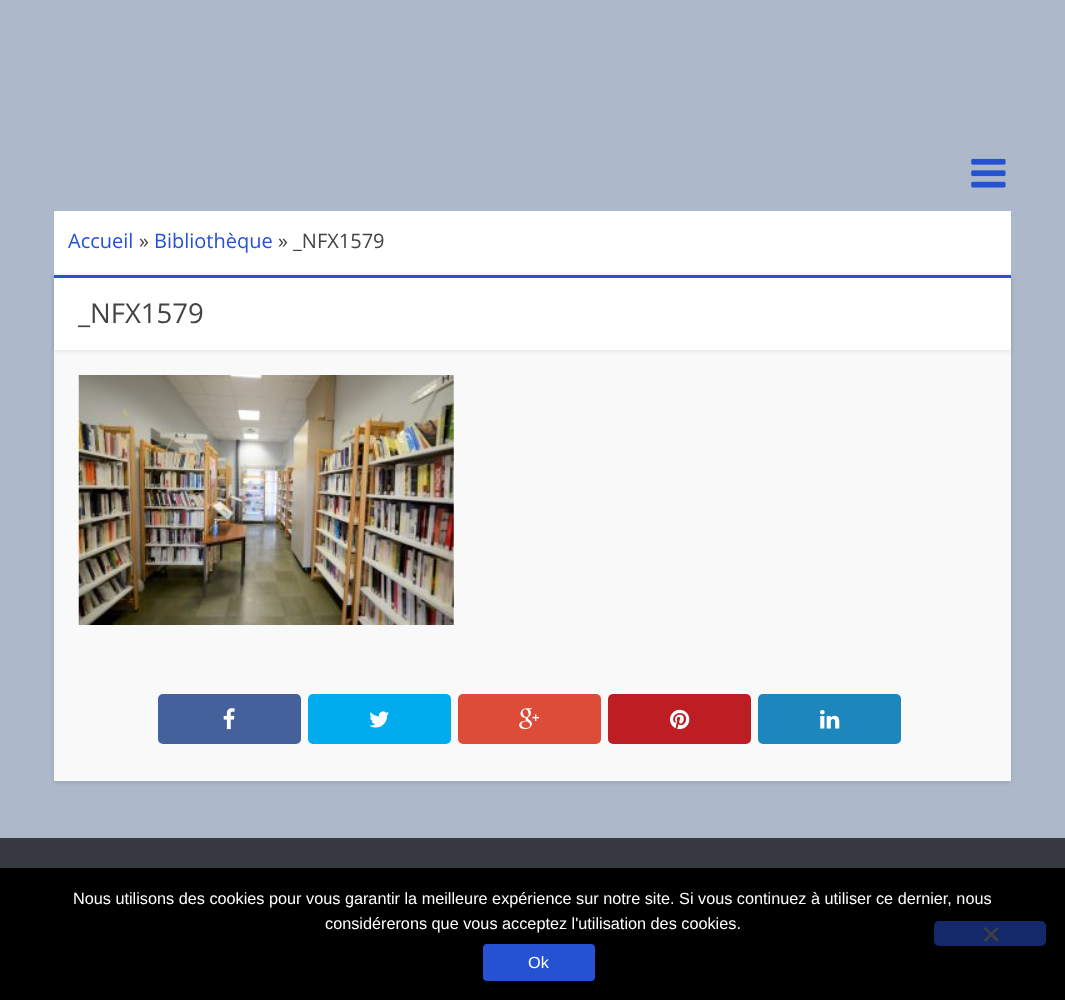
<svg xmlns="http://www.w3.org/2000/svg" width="1065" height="1000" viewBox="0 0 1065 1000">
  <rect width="100%" height="100%" fill="#adb9ca"/>
  <image x="971" y="158" width="35" height="30" href="img/1.png"/>
  <path d="M54 211h957v64H54z" fill="#fff"/>
  <path d="M54 276h957v507H54z" fill="#0000001a" filter="blur(2px)"/>
  <path d="M54 350h957v431H54z" fill="#f9f9f9"/>
  <path d="M54 276h957v75H54z" fill="#0000001a" filter="blur(2px)"/>
  <path d="M54 278h957v72H54z" fill="#fff"/>
  <path d="M54 275h957v3H54z" fill="#2551d3"/>
  <image x="78" y="375" width="376" height="250" href="img/2.png"/>
  <rect x="158" y="694" width="143" height="50" rx="5" fill="#45619c"/>
  <image x="223" y="708" width="12" height="22" href="img/3.png"/>
  <rect x="308" y="694" width="143" height="50" rx="5" fill="#00acee"/>
  <image x="369" y="711" width="20" height="17" href="img/4.png"/>
  <rect x="458" y="694" width="143" height="50" rx="5" fill="#dd4b39"/>
  <image x="519" y="708" width="20" height="22" href="img/5.png"/>
  <rect x="608" y="694" width="143" height="50" rx="5" fill="#bd1e23"/>
  <image x="670" y="709" width="20" height="21" href="img/6.png"/>
  <rect x="758" y="694" width="143" height="50" rx="5" fill="#1d87bd"/>
  <image x="820" y="710" width="20" height="19" href="img/7.png"/>
  <path d="M0 838h1065v30H0z" fill="#373941"/>
  <path d="M0 868h1065v132H0z" fill="#000"/>
  <rect x="934" y="921" width="112" height="25" rx="5" fill="#13296a"/>
  <path d="M997 927L999 928.5L985.5 942L983.5 940Z" fill="#404040"/>
  <path d="M983.5 928.5L985.5 927L999 940L997 942Z" fill="#404040"/>
  <rect x="483" y="944" width="112" height="37" rx="4" fill="#2551d3"/>
  <text x="68" y="248" font-family="Open Sans" font-size="20" fill="#2551d3">Accueil</text>
  <text x="139" y="248" font-family="Open Sans" font-size="20" fill="#444">»</text>
  <text x="154" y="248" font-family="Open Sans" font-size="20" fill="#2551d3">Bibliothèque</text>
  <text x="278" y="248" font-family="Open Sans" font-size="20" fill="#444">» _NFX1579</text>
  <text x="78" y="323" font-family="Open Sans" font-size="27.5" fill="#444">_NFX1579</text>
  <g font-family="Liberation Sans" font-size="16.25" fill="#fff">
    <text x="73" y="904">Nous utilisons des cookies pour vous garantir la meilleure expérience sur notre site. Si vous continuez à utiliser ce dernier, nous</text>
    <text x="325" y="929">considérerons que vous acceptez l'utilisation des cookies.</text>
    <text x="528" y="968">Ok</text>
  </g>
</svg>
